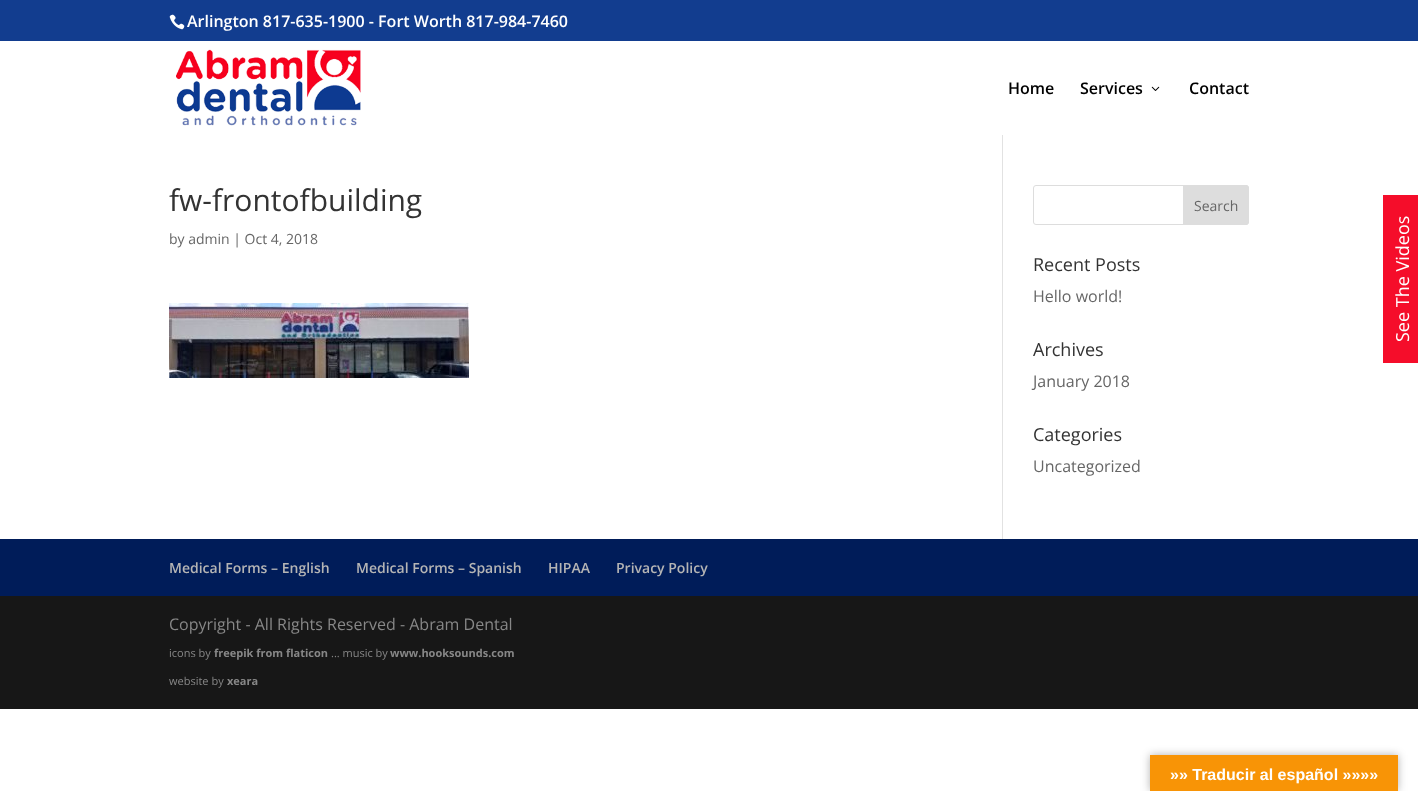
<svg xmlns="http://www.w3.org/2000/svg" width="1418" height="791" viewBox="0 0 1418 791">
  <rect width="100%" height="100%" fill="#fff"/>
  <path d="M0 0h1418v41H0z" fill="#123d8f"/>
  <image x="169" y="14" width="16" height="16" href="img/1.png"/>
  <path d="M1002 127h1v412H1002z" fill="#e2e2e2"/>
  <path d="M1002 127h1v8H1002z" fill="#fff"/>
  <image x="176" y="49" width="185" height="77" href="img/2.png"/>
  <image x="1151" y="86" width="9" height="5" href="img/3.png"/>
  <image x="169" y="303" width="300" height="75" href="img/4.png"/>
  <rect x="1033.5" y="185.5" width="215" height="39" rx="2.5" fill="none" stroke="#ddd"/>
  <path d="M1183.5 185.5H1246C1247.5 185.5 1248.5 186.5 1248.5 188V222C1248.5 223.5 1247.5 224.5 1246 224.5H1183.5Z" fill="#ddd" stroke="#ddd"/>
  <path d="M0 539h1418v57H0z" fill="#001c59"/>
  <path d="M0 596h1418v113H0z" fill="#171717"/>
  <path d="M1383 195h35v168H1383z" fill="#f50d2a"/>
  <path d="M1150 755h248v36H1150z" fill="#0000004d" filter="blur(4.5px)"/>
  <path d="M1150 755h248v36H1150z" fill="#f89406"/>
  <text x="187" y="27" font-family="Open Sans" font-size="16" font-weight="600" fill="#fff">Arlington 817-635-1900 - Fort Worth 817-984-7460</text>
  <g font-family="Open Sans" font-size="16" font-weight="600" fill="#000">
    <text x="1008" y="94">Home</text>
    <text x="1080" y="94">Services</text>
    <text x="1189" y="94">Contact</text>
  </g>
  <text x="169" y="211" font-family="Open Sans" font-size="30" fill="#333">fw-frontofbuilding</text>
  <g font-family="Open Sans" font-size="14" fill="#666">
    <text x="169" y="244">by admin | Oct 4, 2018</text>
    <text x="1194" y="211">Search</text>
  </g>
  <text x="1033" y="271" font-family="Open Sans" font-size="18" fill="#333">Recent Posts</text>
  <text x="1033" y="302" font-family="Open Sans" font-size="16" fill="#666">Hello world!</text>
  <text x="1033" y="356" font-family="Open Sans" font-size="18" fill="#333">Archives</text>
  <text x="1033" y="387" font-family="Open Sans" font-size="16" fill="#666">January 2018</text>
  <text x="1033" y="441" font-family="Open Sans" font-size="18" fill="#333">Categories</text>
  <text x="1033" y="472" font-family="Open Sans" font-size="16" fill="#666">Uncategorized</text>
  <g font-family="Open Sans" font-size="14" font-weight="600" fill="#b5b5b5">
    <text x="169" y="573">Medical Forms – English</text>
    <text x="356" y="573">Medical Forms – Spanish</text>
    <text x="548" y="573">HIPAA</text>
    <text x="616" y="573">Privacy Policy</text>
  </g>
  <text x="169" y="630" font-family="Open Sans" font-size="16" fill="#878787">Copyright - All Rights Reserved - Abram Dental</text>
  <text x="169" y="657" font-family="Open Sans" font-size="11" fill="#878787">icons by</text>
  <text x="214" y="657" font-family="Open Sans" font-size="11" font-weight="bold" fill="#878787">freepik from flaticon</text>
  <text x="331" y="657" font-family="Open Sans" font-size="11" fill="#878787">... music by</text>
  <text x="390" y="657" font-family="Open Sans" font-size="11" font-weight="bold" fill="#878787">www.hooksounds.com</text>
  <text x="169" y="685" font-family="Open Sans" font-size="11" fill="#878787">website by</text>
  <text x="227" y="685" font-family="Open Sans" font-size="11" font-weight="bold" fill="#878787">xeara</text>
  <text x="1409" y="342" transform="rotate(-90 1409 342)" font-family="Open Sans" font-size="18" fill="#fff">See The Videos</text>
  <text x="1170" y="780" font-family="Liberation Sans" font-size="16" font-weight="bold" fill="#fff">»» Traducir al español »»»»</text>
</svg>
